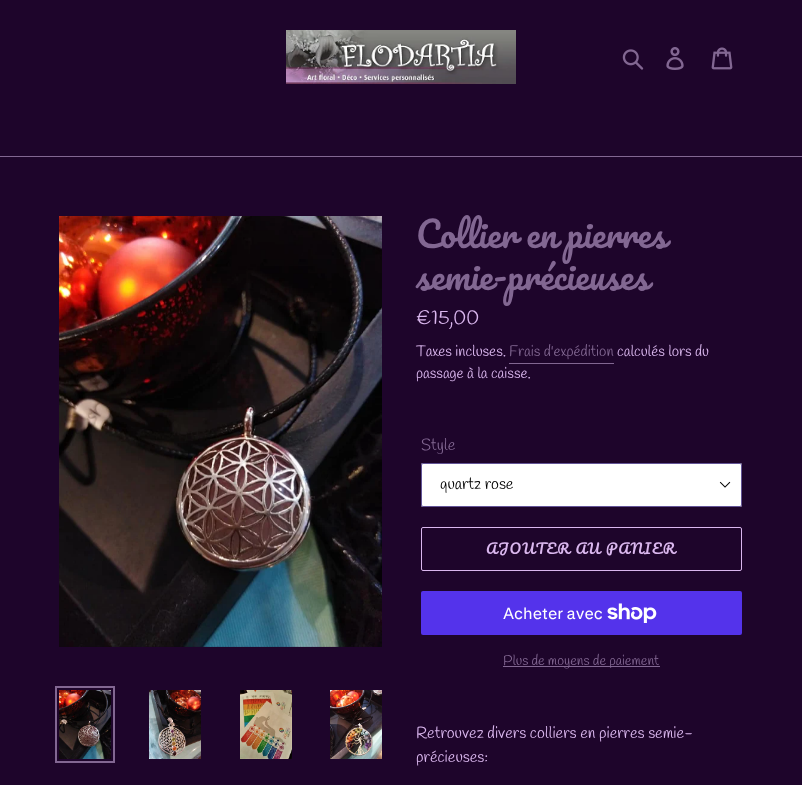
<svg xmlns="http://www.w3.org/2000/svg" width="802" height="785" viewBox="0 0 802 785">
  <style>*{font-kerning:none!important;font-variant-ligatures:none!important}</style>
  <rect width="100%" height="100%" fill="#1e052b"/>
  <image x="286" y="30" width="230" height="54" href="img/1.png"/>
  <image x="622" y="49" width="22" height="21" href="img/2.png"/>
  <image x="666" y="47" width="18" height="23" href="img/3.png"/>
  <image x="711" y="47" width="22" height="23" href="img/4.png"/>
  <path d="M0 156h802v1H0z" fill="#826792"/>
  <image x="59" y="216" width="323" height="431" href="img/5.png"/>
  <path d="M56 687h58v75H56z" fill="none" stroke="#826792" stroke-width="2"/>
  <image x="59" y="690" width="52" height="69" href="img/6.png"/>
  <image x="149" y="690" width="52" height="69" href="img/7.png"/>
  <image x="240" y="690" width="52" height="69" href="img/8.png"/>
  <image x="330" y="690" width="52" height="69" href="img/9.png"/>
  <path d="M509 363h105v1H509z" fill="#826792"/>
  <rect x="421" y="463" width="321" height="44" rx="2" fill="#fff"/>
  <image x="719" y="481" width="12" height="7" href="img/10.png"/>
  <rect x="421.5" y="463.5" width="320" height="43" rx="1.5" fill="none" stroke="#635597"/>
  <rect x="421.5" y="527.5" width="320" height="43" rx="1.5" fill="none" stroke="#dab7ee"/>
  <rect x="421" y="591" width="321" height="44" rx="2" fill="#5433eb"/>
  <image x="607" y="603" width="50" height="20" href="img/11.png"/>
  <path d="M503 666h157v1H503z" fill="#826792"/>
  <g font-family="Pacifico" font-size="35" fill="#826792">
    <text x="416" y="248">Collier en pierres</text>
    <text x="416" y="290">semie-précieuses</text>
  </g>
  <text x="416" y="324" font-family="Handlee" font-size="20" fill="#dab7ee">€15,00</text>
  <text x="416" y="356" font-family="Handlee" font-size="15" fill="#dab7ee">Taxes incluses.</text>
  <text x="509" y="356" font-family="Handlee" font-size="15" fill="#826792">Frais d'expédition</text>
  <g font-family="Handlee" font-size="15" fill="#dab7ee">
    <text x="617" y="356">calculés lors du</text>
    <text x="416" y="378">passage à la caisse.</text>
  </g>
  <text x="421" y="450" font-family="Handlee" font-size="16" fill="#826792">Style</text>
  <text x="440" y="489" font-family="Handlee" font-size="16" fill="#000">quartz rose</text>
  <text x="486" y="554" font-family="Pacifico" font-size="14" letter-spacing="1.1" fill="#dab7ee">AJOUTER AU PANIER</text>
  <text x="503" y="619" font-family="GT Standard" font-size="16" fill="#fff">Acheter avec</text>
  <text x="503" y="665" font-family="Handlee" font-size="14" fill="#826792">Plus de moyens de paiement</text>
  <g font-family="Handlee" font-size="16" fill="#dab7ee">
    <text x="416" y="738">Retrouvez divers colliers en pierres semie-</text>
    <text x="416" y="762">précieuses:</text>
  </g>
</svg>
